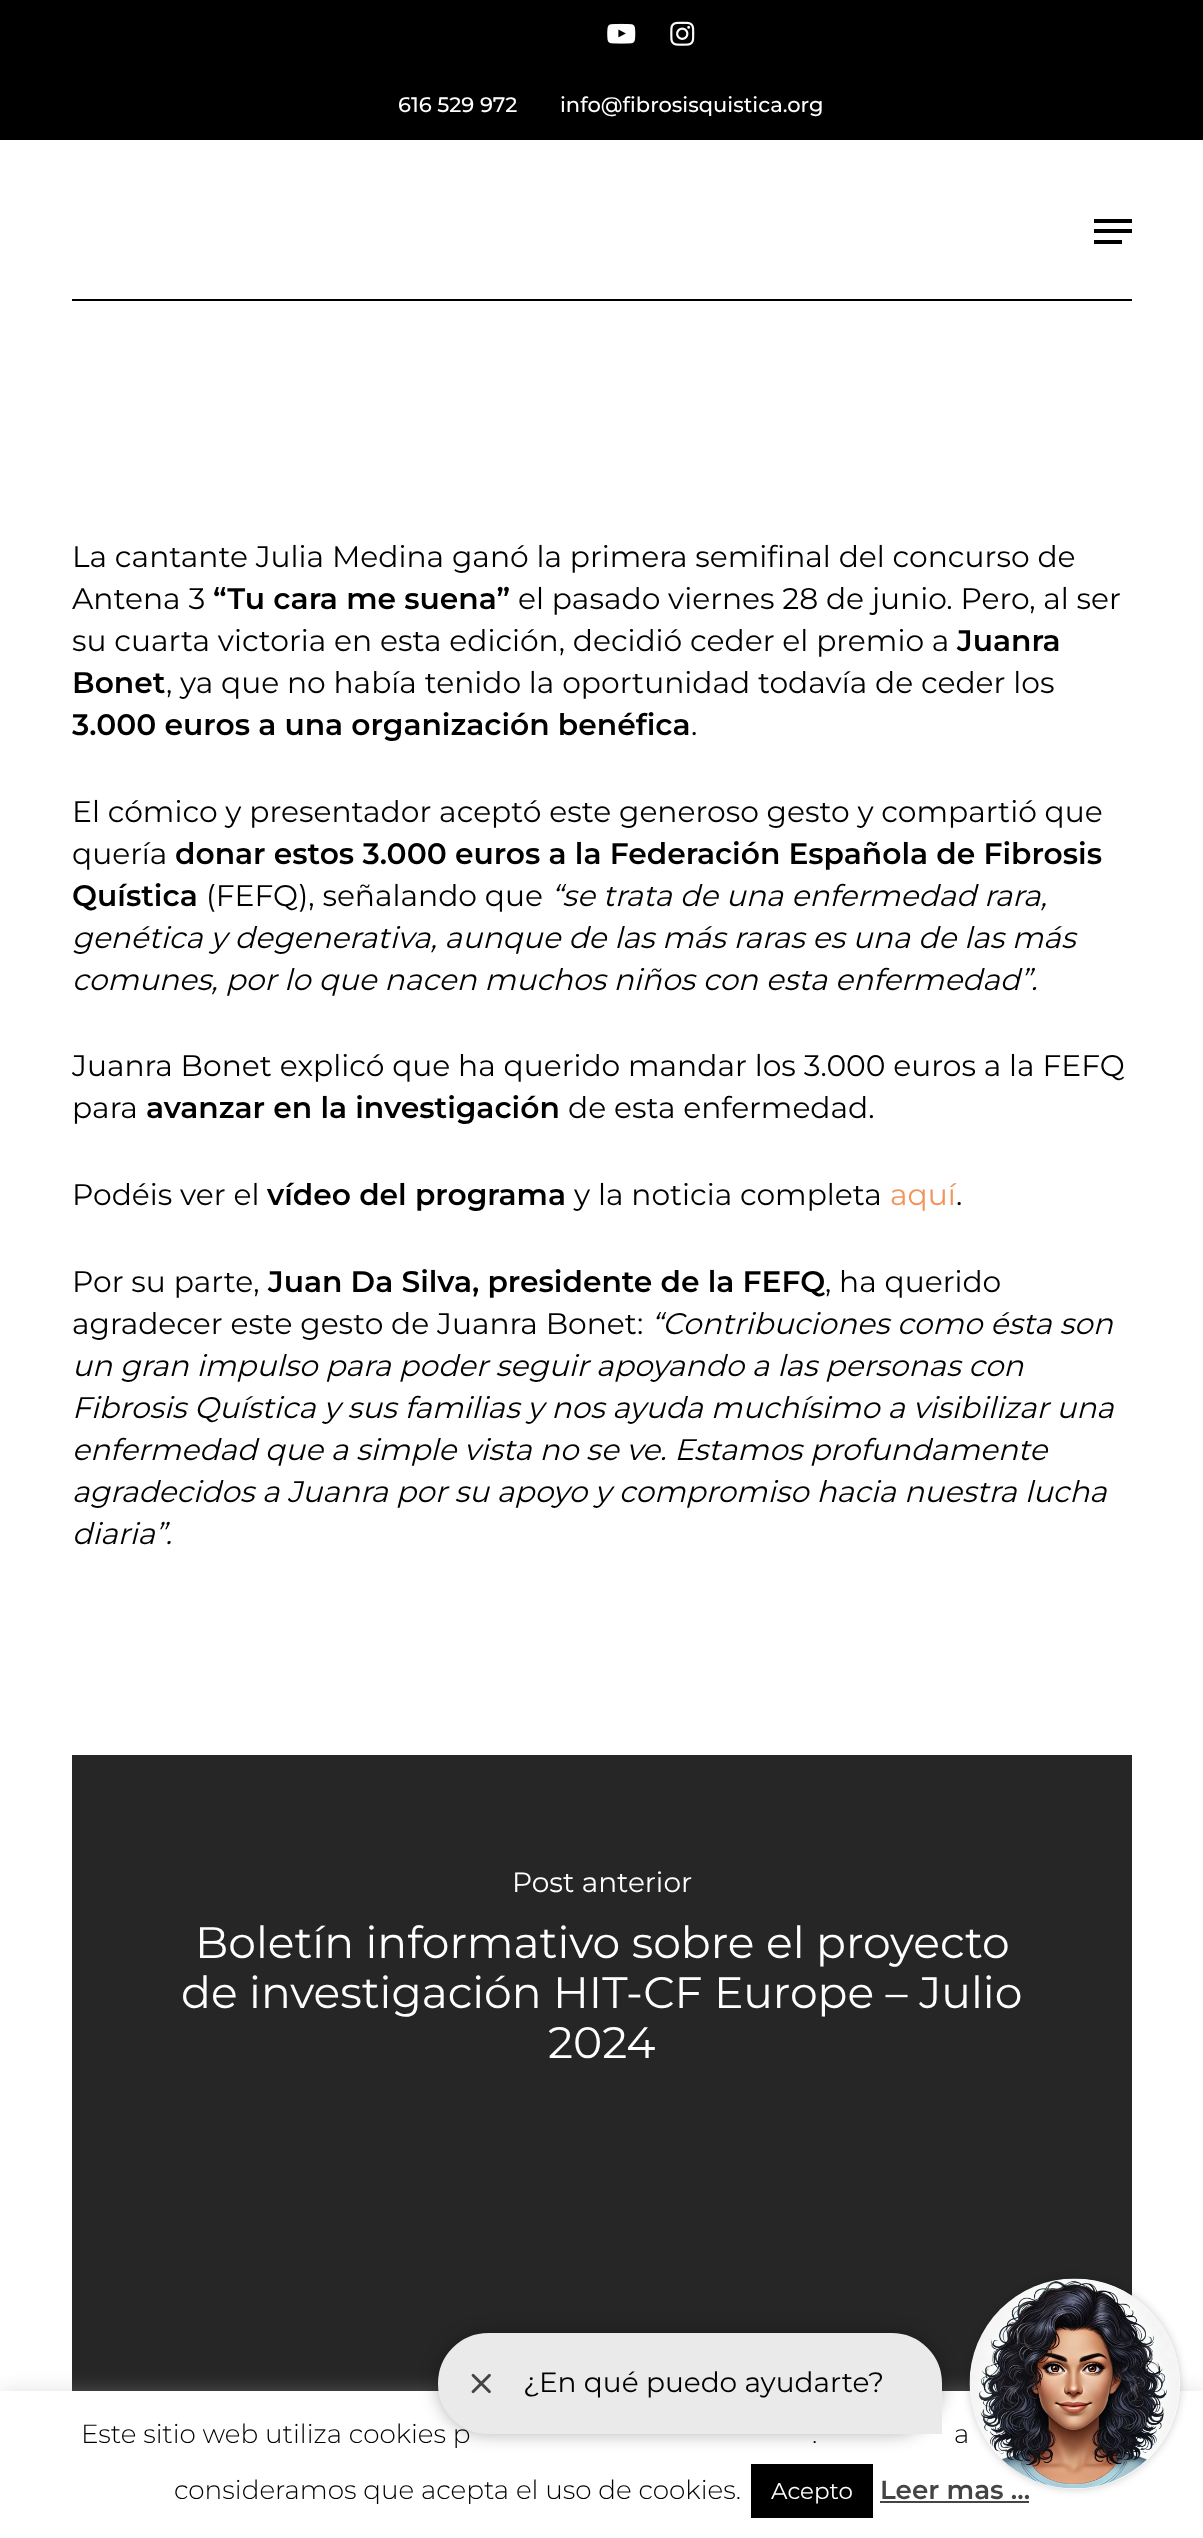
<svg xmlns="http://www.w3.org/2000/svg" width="1203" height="2538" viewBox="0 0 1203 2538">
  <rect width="100%" height="100%" fill="#fff"/>
  <path d="M0 0h1203v140H0z" fill="#000"/>
  <image x="607" y="23" width="29" height="21" href="img/1.png"/>
  <image x="670" y="21" width="25" height="25" href="img/2.png"/>
  <path d="M72 299h1060v2H72z" fill="#000"/>
  <path d="M1094 219h38v4H1094z" fill="#000"/>
  <path d="M1094 240h28v4H1094z" fill="#000"/>
  <path d="M1094 229h38v4H1094z" fill="#000"/>
  <path d="M72 1755h1060v636H72z" fill="#262626"/>
  <path d="M0 2389h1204v149H0z" fill="#acabab4d" filter="blur(9px)"/>
  <path d="M0 2391h1203v147H0z" fill="#fff"/>
  <rect x="438" y="2333" width="504" height="101" rx="50.5" fill="#0000004d" filter="blur(9px)"/>
  <path d="M880 2501h149v2H880z" fill="#444"/>
  <rect x="970" y="2279" width="210" height="210" rx="105" fill="#00000033" filter="blur(4.5px)"/>
  <path d="M751 2464h122v54H751z" fill="#000"/>
  <g font-family="Montserrat" font-size="21" font-weight="500" fill="#fff">
    <text x="398" y="112">616 529 972</text>
    <text x="560" y="112">info@fibrosisquistica.org</text>
  </g>
  <g font-family="Montserrat" font-size="29.75" fill="#000">
    <text x="72" y="567">La cantante Julia Medina ganó la primera semifinal del concurso de</text>
    <text x="72" y="609">Antena 3</text>
  </g>
  <text x="213" y="609" font-family="Montserrat" font-size="29.75" font-weight="600" fill="#000">“Tu cara me suena”</text>
  <g font-family="Montserrat" font-size="29.75" fill="#000">
    <text x="518" y="609">el pasado viernes 28 de junio. Pero, al ser</text>
    <text x="72" y="651">su cuarta victoria en esta edición, decidió ceder el premio a</text>
  </g>
  <g font-family="Montserrat" font-size="29.75" font-weight="600" fill="#000">
    <text x="957" y="651">Juanra</text>
    <text x="72" y="693">Bonet</text>
  </g>
  <text x="166" y="693" font-family="Montserrat" font-size="29.75" fill="#000">, ya que no había tenido la oportunidad todavía de ceder los</text>
  <text x="72" y="735" font-family="Montserrat" font-size="29.75" font-weight="600" fill="#000">3.000 euros a una organización benéfica</text>
  <g font-family="Montserrat" font-size="29.75" fill="#000">
    <text x="691" y="735">.</text>
    <text x="72" y="822">El cómico y presentador aceptó este generoso gesto y compartió que</text>
    <text x="72" y="864">quería</text>
  </g>
  <g font-family="Montserrat" font-size="29.75" font-weight="600" fill="#000">
    <text x="175" y="864">donar estos 3.000 euros a la Federación Española de Fibrosis</text>
    <text x="72" y="906">Quística</text>
  </g>
  <text x="206" y="906" font-family="Montserrat" font-size="29.75" fill="#000">(FEFQ), señalando que</text>
  <g font-family="Montserrat" font-size="29.75" font-style="italic" fill="#000">
    <text x="551" y="906">“se trata de una enfermedad rara,</text>
    <text x="72" y="948">genética y degenerativa, aunque de las más raras es una de las más</text>
    <text x="72" y="990">comunes, por lo que nacen muchos niños con esta enfermedad”.</text>
  </g>
  <g font-family="Montserrat" font-size="29.75" fill="#000">
    <text x="72" y="1076">Juanra Bonet explicó que ha querido mandar los 3.000 euros a la FEFQ</text>
    <text x="72" y="1118">para</text>
  </g>
  <text x="146" y="1118" font-family="Montserrat" font-size="29.75" font-weight="600" fill="#000">avanzar en la investigación</text>
  <g font-family="Montserrat" font-size="29.75" fill="#000">
    <text x="568" y="1118">de esta enfermedad.</text>
    <text x="72" y="1205">Podéis ver el</text>
  </g>
  <text x="267" y="1205" font-family="Montserrat" font-size="29.75" font-weight="600" fill="#000">vídeo del programa</text>
  <text x="574" y="1205" font-family="Montserrat" font-size="29.75" fill="#000">y la noticia completa</text>
  <text x="890" y="1205" font-family="Montserrat" font-size="29.75" fill="#f2935c">aquí</text>
  <g font-family="Montserrat" font-size="29.75" fill="#000">
    <text x="956" y="1205">.</text>
    <text x="72" y="1292">Por su parte,</text>
  </g>
  <text x="268" y="1292" font-family="Montserrat" font-size="29.75" font-weight="600" fill="#000">Juan Da Silva, presidente de la FEFQ</text>
  <g font-family="Montserrat" font-size="29.75" fill="#000">
    <text x="825" y="1292">, ha querido</text>
    <text x="72" y="1334">agradecer este gesto de Juanra Bonet:</text>
  </g>
  <g font-family="Montserrat" font-size="29.75" font-style="italic" fill="#000">
    <text x="651" y="1334">“Contribuciones como ésta son</text>
    <text x="72" y="1376">un gran impulso para poder seguir apoyando a las personas con</text>
    <text x="72" y="1418">Fibrosis Quística y sus familias y nos ayuda muchísimo a visibilizar una</text>
    <text x="72" y="1460">enfermedad que a simple vista no se ve. Estamos profundamente</text>
    <text x="72" y="1502">agradecidos a Juanra por su apoyo y compromiso hacia nuestra lucha</text>
    <text x="72" y="1544">diaria”.</text>
  </g>
  <text x="512" y="1892" font-family="Montserrat" font-size="28" fill="#fff">Post anterior</text>
  <g font-family="Montserrat" font-size="44.1" fill="#fff">
    <text x="195" y="1958">Boletín informativo sobre el proyecto</text>
    <text x="181" y="2008">de investigación HIT-CF Europe – Julio</text>
    <text x="548" y="2058">2024</text>
  </g>
  <text x="81" y="2443" font-family="Montserrat" font-size="26.25" font-weight="300" fill="#000">Este sitio web utiliza cookies p</text>
  <path d="M488.5 2334H891.5C919 2334 941 2356 941 2383.5V2433H488.5C461 2433 439 2411 439 2383.5C439 2356 461 2334 488.5 2334Z" fill="#eaeaea" stroke="#eaeaea" stroke-width="2"/>
  <image x="471" y="2373" width="20" height="21" href="img/3.png"/>
  <text x="523" y="2392" font-family="Montserrat" font-size="28" fill="#000">¿En qué puedo ayudarte?</text>
  <g font-family="Montserrat" font-size="26.25" font-weight="300" fill="#000">
    <text x="812" y="2443">.</text>
    <text x="954" y="2443">a</text>
    <text x="174" y="2499">consideramos que acepta el uso de cookies.</text>
  </g>
  <text x="771" y="2499" font-family="Montserrat" font-size="23" fill="#fff">Acepto</text>
  <text x="880" y="2499" font-family="Montserrat" font-size="26.25" font-weight="600" fill="#444">Leer mas ...</text>
  <circle cx="1075" cy="2384" r="105" fill="#fff"/>
  <image x="969" y="2278" width="210" height="211" href="img/4.png"/>
</svg>
